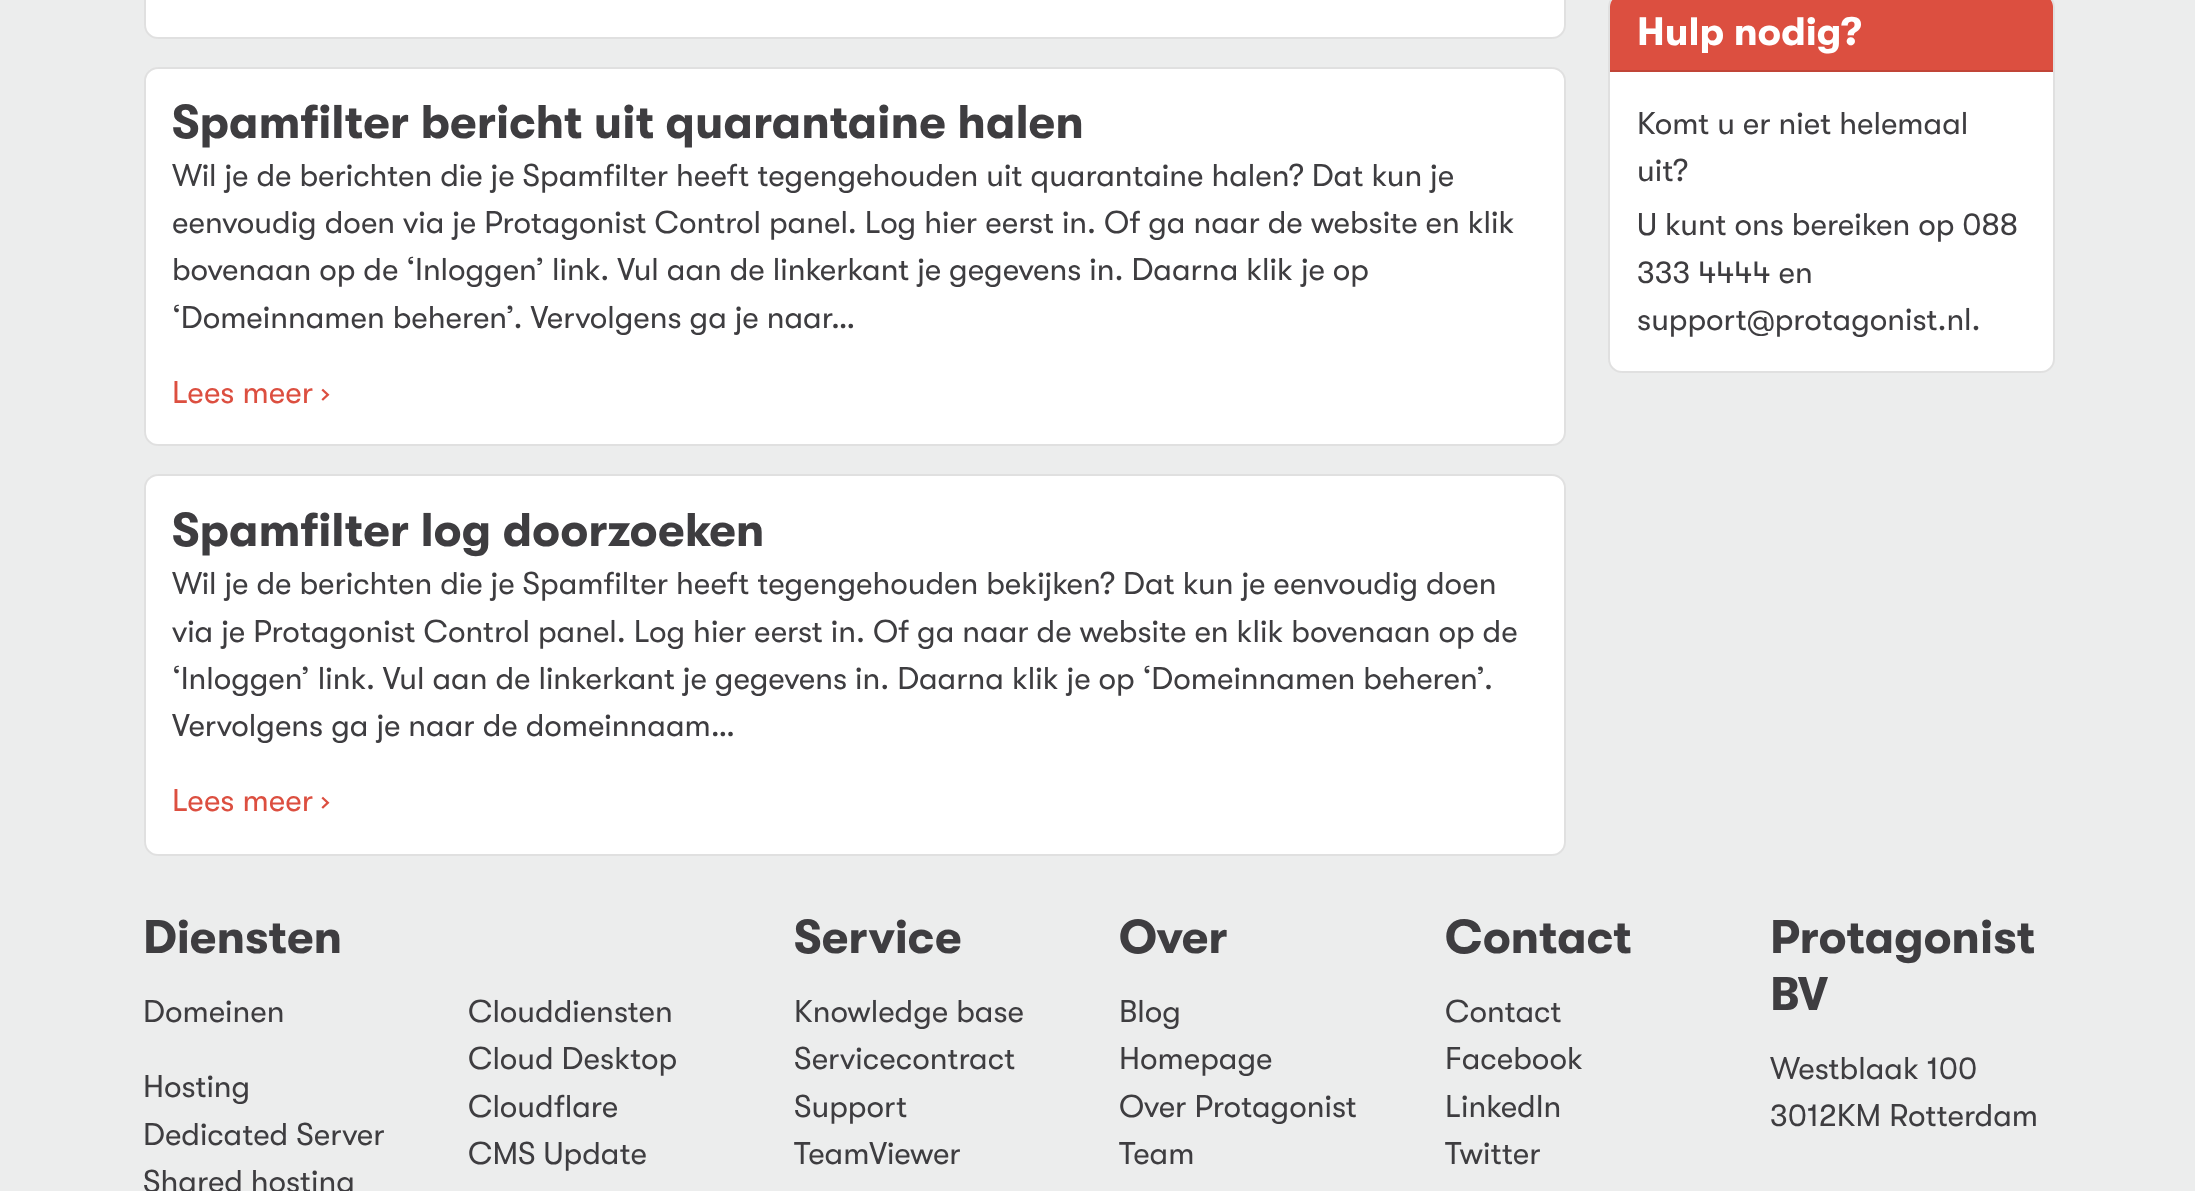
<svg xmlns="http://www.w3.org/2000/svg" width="2195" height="1191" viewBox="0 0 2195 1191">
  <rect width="100%" height="100%" fill="#eceded"/>
  <rect x="144" y="-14" width="1422" height="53" rx="14" fill="#fff"/>
  <rect x="145" y="-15" width="1420" height="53" rx="13" fill="none" stroke="#0000001f" stroke-width="2"/>
  <rect x="144" y="67" width="1422" height="379" rx="14" fill="#fff"/>
  <rect x="145" y="68" width="1420" height="377" rx="13" fill="none" stroke="#0000001f" stroke-width="2"/>
  <rect x="144" y="474" width="1422" height="382" rx="14" fill="#fff"/>
  <rect x="145" y="475" width="1420" height="380" rx="13" fill="none" stroke="#0000001f" stroke-width="2"/>
  <rect x="1608" y="-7" width="447" height="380" rx="14" fill="#fff"/>
  <rect x="1609" y="-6" width="445" height="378" rx="13" fill="none" stroke="#0000001f" stroke-width="2"/>
  <path d="M1622-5H2041C2047.5-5 2053 .5 2053 7V72H1610V7C1610 .5 1615.5-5 1622-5Z" fill="#dc4f40"/>
  <path d="M1610 70h443v2H1610z" fill="#c14538"/>
  <text x="172" y="138" font-family="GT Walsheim" font-size="47.25" font-weight="bold" fill="#3e3d40">Spamfilter bericht uit quarantaine halen</text>
  <g font-family="GT Walsheim" font-size="31.5" fill="#3e3d40">
    <text x="172" y="186">Wil je de berichten die je Spamfilter heeft tegengehouden uit quarantaine halen? Dat kun je</text>
    <text x="172" y="233">eenvoudig doen via je Protagonist Control panel. Log hier eerst in. Of ga naar de website en klik</text>
    <text x="172" y="280">bovenaan op de ‘Inloggen’ link. Vul aan de linkerkant je gegevens in. Daarna klik je op</text>
    <text x="172" y="328">‘Domeinnamen beheren’. Vervolgens ga je naar…</text>
  </g>
  <text x="172" y="403" font-family="GT Walsheim" font-size="31.5" fill="#dc4f40">Lees meer ›</text>
  <text x="172" y="546" font-family="GT Walsheim" font-size="47.25" font-weight="bold" fill="#3e3d40">Spamfilter log doorzoeken</text>
  <g font-family="GT Walsheim" font-size="31.5" fill="#3e3d40">
    <text x="172" y="594">Wil je de berichten die je Spamfilter heeft tegengehouden bekijken? Dat kun je eenvoudig doen</text>
    <text x="172" y="642">via je Protagonist Control panel. Log hier eerst in. Of ga naar de website en klik bovenaan op de</text>
    <text x="172" y="689">‘Inloggen’ link. Vul aan de linkerkant je gegevens in. Daarna klik je op ‘Domeinnamen beheren’.</text>
    <text x="172" y="736">Vervolgens ga je naar de domeinnaam…</text>
  </g>
  <text x="172" y="811" font-family="GT Walsheim" font-size="31.5" fill="#dc4f40">Lees meer ›</text>
  <text x="1637" y="45" font-family="GT Walsheim" font-size="39.5" font-weight="bold" fill="#fff">Hulp nodig?</text>
  <g font-family="GT Walsheim" font-size="31.5" fill="#3e3d40">
    <text x="1637" y="134">Komt u er niet helemaal</text>
    <text x="1637" y="181">uit?</text>
    <text x="1637" y="235">U kunt ons bereiken op 088</text>
    <text x="1637" y="283">333 4444 en</text>
    <text x="1637" y="330">support@protagonist.nl.</text>
  </g>
  <text x="143" y="953" font-family="GT Walsheim" font-size="47.25" font-weight="bold" fill="#3e3d40">Diensten</text>
  <g font-family="GT Walsheim" font-size="31.5" fill="#3e3d40">
    <text x="143" y="1022">Domeinen</text>
    <text x="143" y="1097">Hosting</text>
    <text x="143" y="1145">Dedicated Server</text>
    <text x="143" y="1192">Shared hosting</text>
    <text x="468" y="1022">Clouddiensten</text>
    <text x="468" y="1069">Cloud Desktop</text>
    <text x="468" y="1117">Cloudflare</text>
    <text x="468" y="1164">CMS Update</text>
  </g>
  <text x="794" y="953" font-family="GT Walsheim" font-size="47.25" font-weight="bold" fill="#3e3d40">Service</text>
  <g font-family="GT Walsheim" font-size="31.5" fill="#3e3d40">
    <text x="794" y="1022">Knowledge base</text>
    <text x="794" y="1069">Servicecontract</text>
    <text x="794" y="1117">Support</text>
    <text x="794" y="1164">TeamViewer</text>
  </g>
  <text x="1119" y="953" font-family="GT Walsheim" font-size="47.25" font-weight="bold" fill="#3e3d40">Over</text>
  <g font-family="GT Walsheim" font-size="31.5" fill="#3e3d40">
    <text x="1119" y="1022">Blog</text>
    <text x="1119" y="1069">Homepage</text>
    <text x="1119" y="1117">Over Protagonist</text>
    <text x="1119" y="1164">Team</text>
  </g>
  <text x="1445" y="953" font-family="GT Walsheim" font-size="47.25" font-weight="bold" fill="#3e3d40">Contact</text>
  <g font-family="GT Walsheim" font-size="31.5" fill="#3e3d40">
    <text x="1445" y="1022">Contact</text>
    <text x="1445" y="1069">Facebook</text>
    <text x="1445" y="1117">LinkedIn</text>
    <text x="1445" y="1164">Twitter</text>
  </g>
  <g font-family="GT Walsheim" font-size="47.25" font-weight="bold" fill="#3e3d40">
    <text x="1770" y="953">Protagonist</text>
    <text x="1770" y="1010">BV</text>
  </g>
  <g font-family="GT Walsheim" font-size="31.5" fill="#3e3d40">
    <text x="1770" y="1079">Westblaak 100</text>
    <text x="1770" y="1126">3012KM Rotterdam</text>
  </g>
</svg>
